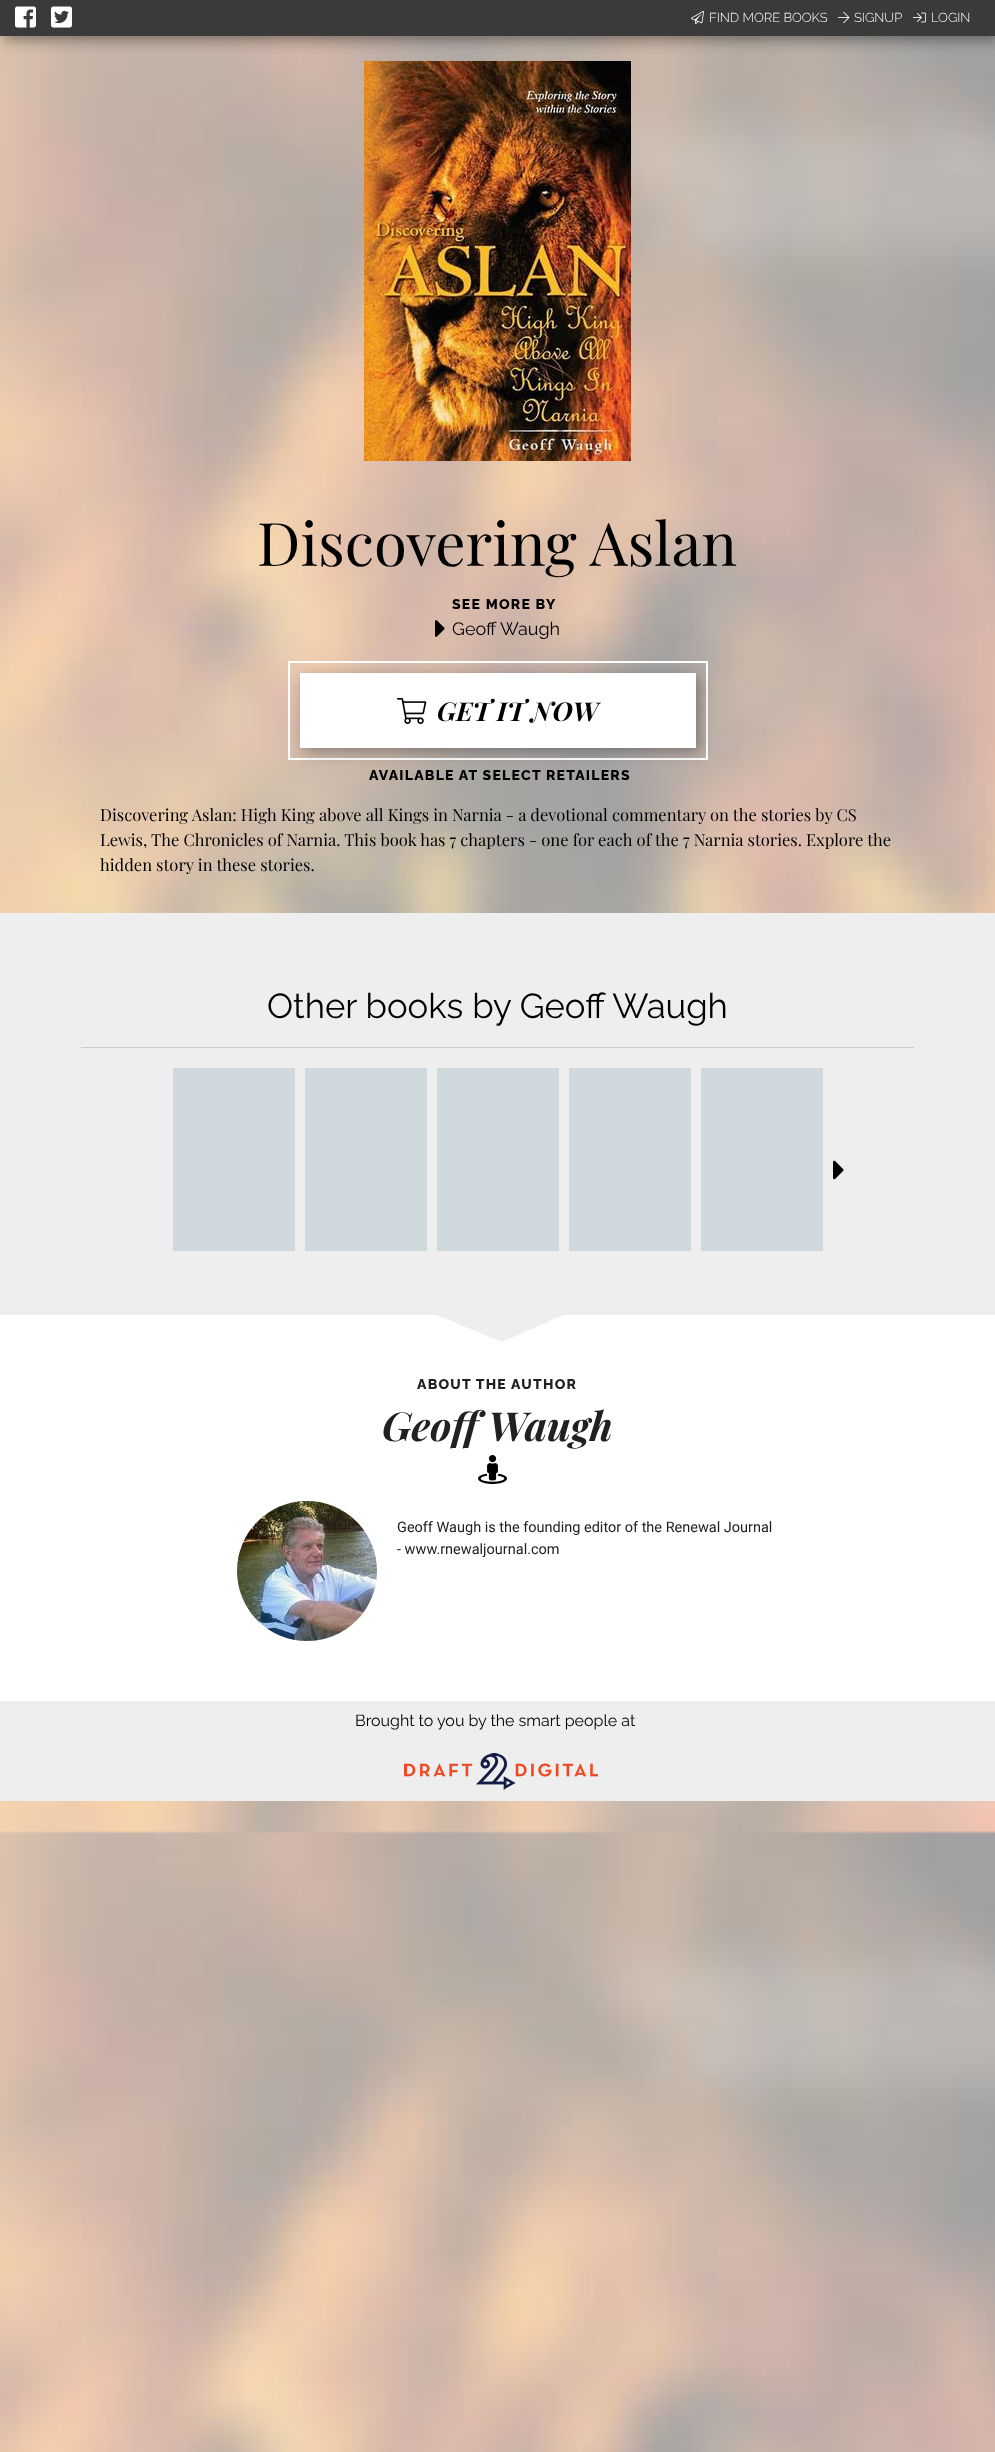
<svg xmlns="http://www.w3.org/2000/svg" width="995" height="2452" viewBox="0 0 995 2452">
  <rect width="100%" height="100%" fill="#fff"/>
  <image x="0" y="36" width="995" height="2416" href="img/1.png"/>
  <image x="364" y="61" width="267" height="400" href="img/7.png"/>
  <path d="M4 4h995v36H4z" fill="#00000066" filter="blur(7px)"/>
  <path d="M0 0h995v36H0z" fill="#3a3a3a"/>
  <image x="15" y="6" width="21" height="22" href="img/2.png"/>
  <image x="51" y="6" width="21" height="22" href="img/3.png"/>
  <image x="691" y="11" width="13" height="13" href="img/4.png"/>
  <image x="838" y="11" width="12" height="13" href="img/5.png"/>
  <image x="913" y="12" width="13" height="11" href="img/6.png"/>
  <image x="435" y="620" width="10" height="17" href="img/8.png"/>
  <path d="M289 662h418v97H289z" fill="none" stroke="#fff" stroke-width="2"/>
  <path d="M304 677h396v75H304z" fill="#0000004d" filter="blur(7px)"/>
  <path d="M300 673h396v75H300z" fill="#fff"/>
  <image x="397" y="698" width="30" height="26" href="img/9.png"/>
  <path d="M0 913h995v41H0z" fill="#eee"/>
  <path d="M0 954h995v361H0z" fill="#eee"/>
  <path d="M81 1047h833v1H81z" fill="#ccc"/>
  <path d="M173 1068h122v183H173z" fill="#cfd8dc"/>
  <path d="M305 1068h122v183H305z" fill="#cfd8dc"/>
  <path d="M437 1068h122v183H437z" fill="#cfd8dc"/>
  <path d="M569 1068h122v183H569z" fill="#cfd8dc"/>
  <path d="M701 1068h122v183H701z" fill="#cfd8dc"/>
  <image x="833" y="1160" width="11" height="20" href="img/10.png"/>
  <path d="M0 1315h995v386H0z" fill="#fff"/>
  <image x="437" y="1315" width="126" height="27" href="img/11.png"/>
  <image x="478" y="1455" width="29" height="29" href="img/12.png"/>
  <image x="237" y="1501" width="140" height="140" href="img/13.png"/>
  <path d="M0 1701h995v100H0z" fill="#eee"/>
  <image x="404" y="1753" width="194" height="37" href="img/14.png"/>
  <g font-family="Raleway" font-size="13" font-weight="300" fill="#fff">
    <text x="709" y="22">FIND MORE BOOKS</text>
    <text x="854" y="22">SIGNUP</text>
    <text x="931" y="22">LOGIN</text>
  </g>
  <text x="257" y="566" font-family="Playfair Display" font-size="60" fill="#000">Discovering Aslan</text>
  <text x="452" y="609" font-family="Raleway" font-size="14" font-weight="800" letter-spacing="1.25" fill="#000">SEE MORE BY</text>
  <text x="452" y="635" font-family="Raleway" font-size="18" fill="#000">Geoff Waugh</text>
  <text x="437" y="721" font-family="Playfair Display" font-size="26" font-weight="bold" font-style="italic" fill="#000">GET IT NOW</text>
  <text x="369" y="780" font-family="Raleway" font-size="14" font-weight="800" letter-spacing="1.25" fill="#000">AVAILABLE AT SELECT RETAILERS</text>
  <g font-family="Playfair Display" font-size="16.55" fill="#000">
    <text x="100" y="821">Discovering Aslan: High King above all Kings in Narnia - a devotional commentary on the stories by CS</text>
    <text x="100" y="846">Lewis, The Chronicles of Narnia. This book has 7 chapters - one for each of the 7 Narnia stories. Explore the</text>
    <text x="100" y="871">hidden story in these stories.</text>
  </g>
  <text x="267" y="1018" font-family="Raleway" font-size="34.7" fill="#000">Other books by Geoff Waugh</text>
  <text x="417" y="1389" font-family="Raleway" font-size="14" font-weight="800" letter-spacing="1.25" fill="#212121">ABOUT THE AUTHOR</text>
  <text x="382" y="1441" font-family="Playfair Display" font-size="40" font-weight="bold" font-style="italic" fill="#212121">Geoff Waugh</text>
  <g font-family="Roboto" font-size="14.5" fill="#212121">
    <text x="397" y="1532">Geoff Waugh is the founding editor of the Renewal Journal</text>
    <text x="397" y="1554">- www.rnewaljournal.com</text>
  </g>
  <text x="355" y="1726" font-family="Raleway" font-size="16" fill="#000">Brought to you by the smart people at</text>
</svg>
